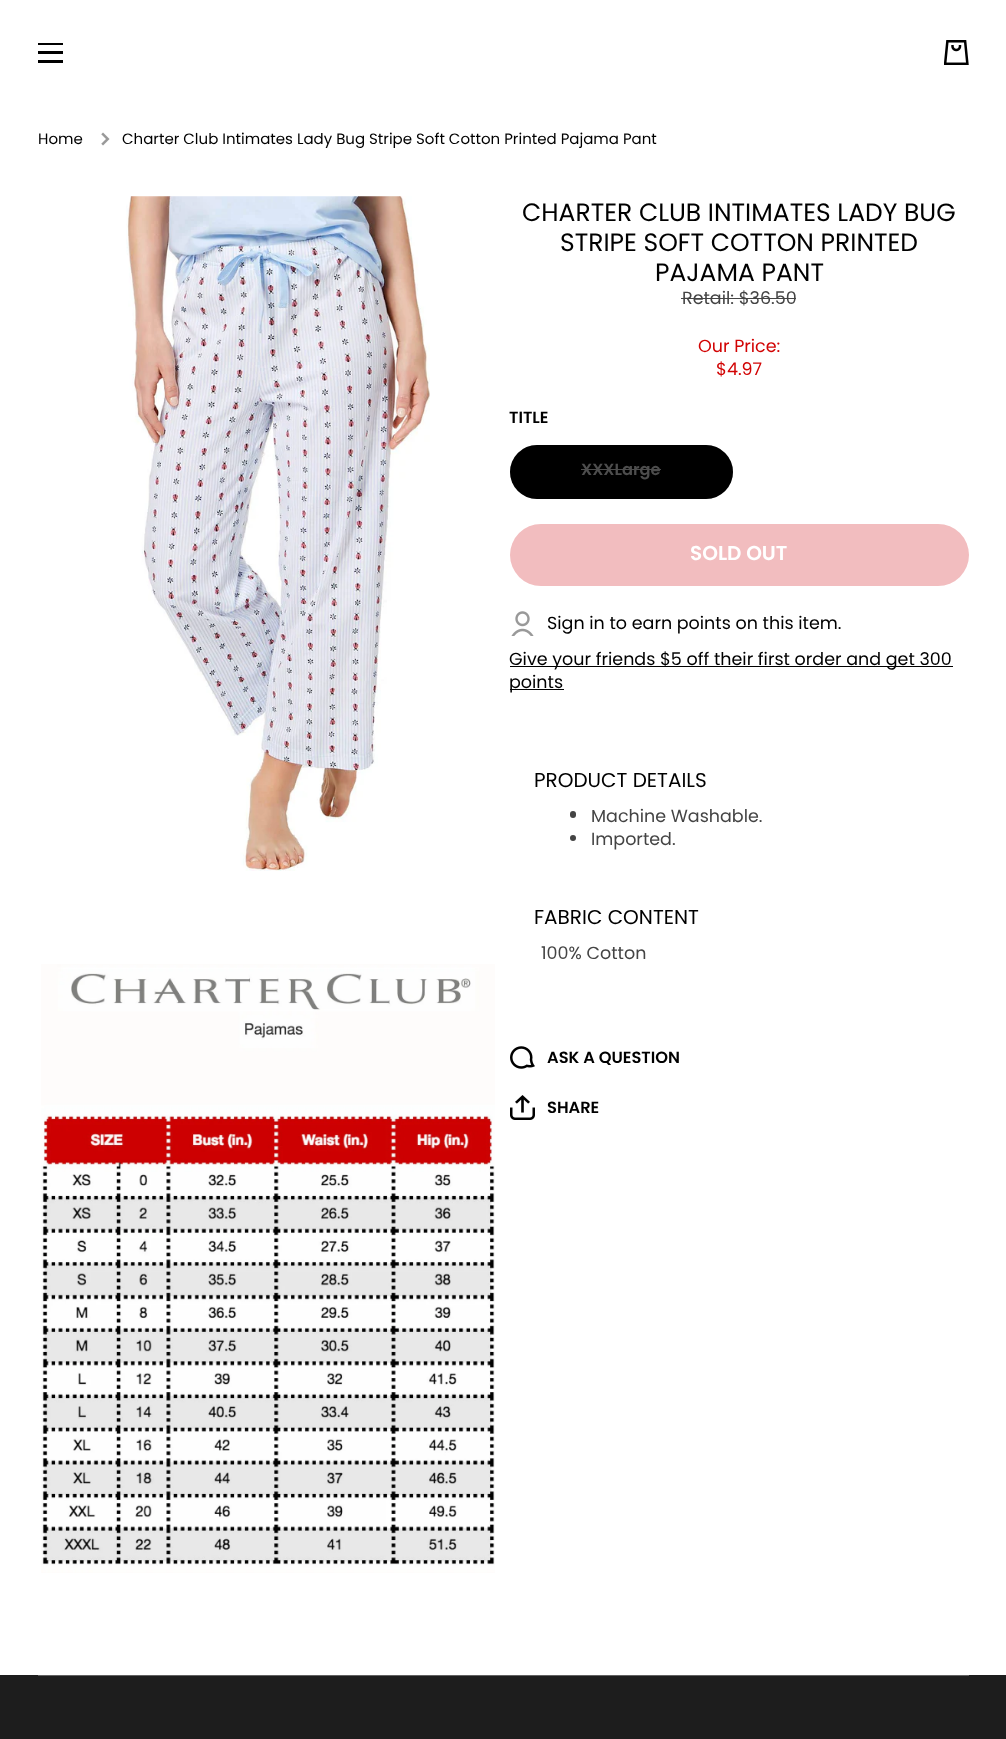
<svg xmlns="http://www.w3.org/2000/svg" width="1006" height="1739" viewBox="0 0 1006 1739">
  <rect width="100%" height="100%" fill="#fff"/>
  <path d="M38 43h25v2H38z" fill="#000"/>
  <path d="M38 51h25v3H38z" fill="#000"/>
  <path d="M38 60h25v3H38z" fill="#000"/>
  <image x="944" y="40" width="25" height="25" href="img/1.png"/>
  <image x="101" y="132" width="9" height="14" href="img/2.png"/>
  <image x="126" y="196" width="304" height="675" href="img/3.png"/>
  <image x="41" y="964" width="454" height="609" href="img/4.png"/>
  <path d="M681 298h115v1H681z" fill="#444"/>
  <rect x="510" y="445" width="223" height="54" rx="27" fill="#000"/>
  <rect x="511.5" y="446.5" width="220" height="51" rx="25.5" fill="none" stroke="#0000004d" stroke-width="3"/>
  <path d="M581 469h80v1H581z" fill="#4d4d4d"/>
  <rect x="510" y="524" width="459" height="62" rx="31" fill="#f2bdbf"/>
  <image x="511" y="611" width="23" height="25" href="img/5.png"/>
  <path d="M510 666h443v1H510z" fill="#000"/>
  <path d="M510 689h54v1H510z" fill="#000"/>
  <rect x="570" y="811" width="6" height="7" rx="3" fill="#444"/>
  <circle cx="573" cy="838" r="3" fill="#444"/>
  <image x="510" y="1046" width="25" height="23" href="img/6.png"/>
  <image x="510" y="1095" width="25" height="25" href="img/7.png"/>
  <path d="M0 1675h1006v64H0z" fill="#1d1d1d"/>
  <path d="M38 1675h931v1H38z" fill="#616161"/>
  <g font-family="Poppins" font-size="15" fill="#000">
    <text x="38" y="144">Home</text>
    <text x="122" y="144">Charter Club Intimates Lady Bug Stripe Soft Cotton Printed Pajama Pant</text>
  </g>
  <g font-family="Poppins" font-size="25" fill="#000">
    <text x="522" y="221">CHARTER CLUB INTIMATES LADY BUG</text>
    <text x="560" y="251">STRIPE SOFT COTTON PRINTED</text>
    <text x="655" y="281">PAJAMA PANT</text>
  </g>
  <text x="682" y="304" font-family="Poppins" font-size="17.5" fill="#444">Retail: $36.50</text>
  <g font-family="Poppins" font-size="17.5" fill="#d20404">
    <text x="698" y="352">Our Price:</text>
    <text x="716" y="375">$4.97</text>
  </g>
  <text x="509" y="423" font-family="Poppins" font-size="16.25" font-weight="600" fill="#000">TITLE</text>
  <text x="581" y="475" font-family="Poppins" font-size="16.25" font-weight="600" fill="#4d4d4d">XXXLarge</text>
  <text x="690" y="560" font-family="Poppins" font-size="20" font-weight="600" fill="#fff">SOLD OUT</text>
  <g font-family="Poppins" font-size="17.5" fill="#000">
    <text x="547" y="629">Sign in to earn points on this item.</text>
    <text x="509" y="665">Give your friends $5 off their first order and get 300</text>
    <text x="509" y="688">points</text>
  </g>
  <text x="534" y="787" font-family="Poppins" font-size="20" fill="#000">PRODUCT DETAILS</text>
  <g font-family="Poppins" font-size="17.5" fill="#444">
    <text x="591" y="822">Machine Washable.</text>
    <text x="591" y="845">Imported.</text>
  </g>
  <text x="534" y="924" font-family="Poppins" font-size="20" fill="#000">FABRIC CONTENT</text>
  <text x="541" y="959" font-family="Poppins" font-size="17.5" fill="#444">100% Cotton</text>
  <g font-family="Poppins" font-size="16.25" font-weight="600" fill="#000">
    <text x="547" y="1063">ASK A QUESTION</text>
    <text x="547" y="1113">SHARE</text>
  </g>
</svg>
